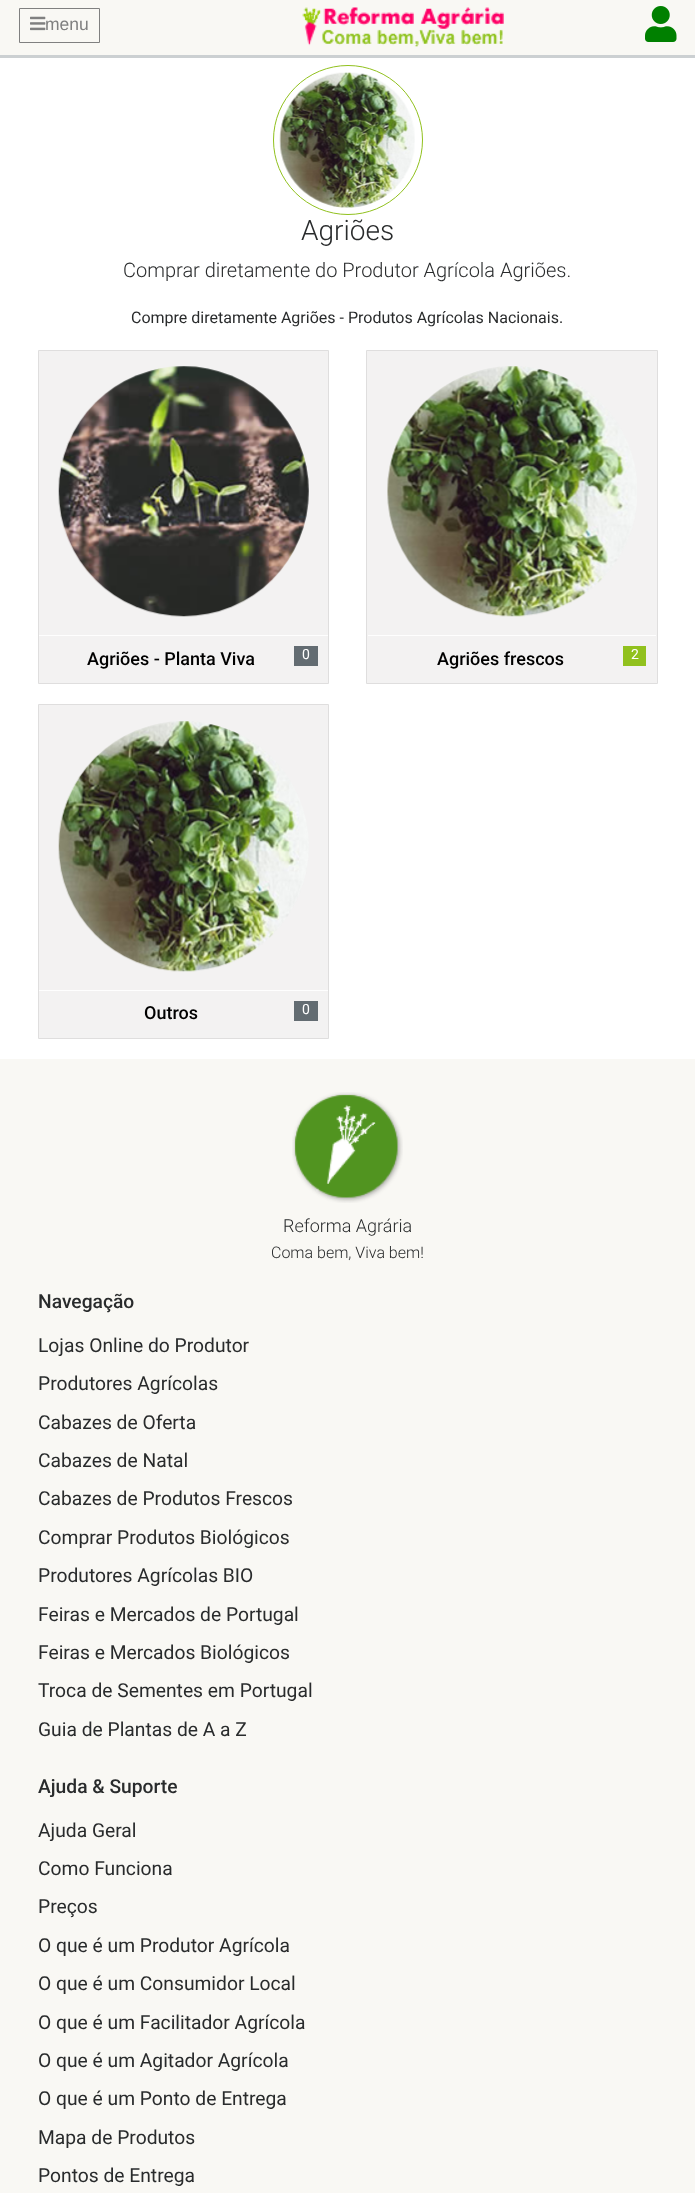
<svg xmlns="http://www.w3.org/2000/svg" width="695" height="2193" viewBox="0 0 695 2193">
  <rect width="100%" height="100%" fill="#fff"/>
  <path d="M0 55h695v3H0z" fill="#ccd0d2"/>
  <path d="M0 0h695v55H0z" fill="#f9f8f4"/>
  <path d="M19.5 8.5h80v34H19.5z" fill="none" stroke="#808080"/>
  <image x="30" y="16" width="16" height="15" href="img/1.png"/>
  <image x="302" y="7" width="202" height="40" href="img/2.png"/>
  <image x="645" y="6" width="32" height="36" href="img/3.png"/>
  <circle cx="348" cy="140" r="74.5" fill="none" stroke="#91c11e"/>
  <image x="279" y="72" width="136" height="136" href="img/4.png"/>
  <path d="M38.5 350.5h290v333H38.5z" fill="#f3f2f2" stroke="#dfdede"/>
  <image x="58" y="366" width="251" height="251" href="img/5.png"/>
  <path d="M39 635h289v1H39z" fill="#fefefe"/>
  <path d="M294 646h24v20H294z" fill="#636c72"/>
  <path d="M366.5 350.5h291v333H366.5z" fill="#f3f2f2" stroke="#dfdede"/>
  <image x="387" y="366" width="250" height="251" href="img/6.png"/>
  <path d="M368 635h288v1H368z" fill="#fefefe"/>
  <path d="M623 646h23v20H623z" fill="#91c11e"/>
  <path d="M38.5 704.5h290v334H38.5z" fill="#f3f2f2" stroke="#dfdede"/>
  <image x="58" y="721" width="251" height="251" href="img/7.png"/>
  <path d="M39 990h289v1H39z" fill="#fefefe"/>
  <path d="M294 1001h24v20H294z" fill="#636c72"/>
  <path d="M0 1059h695v1134H0z" fill="#f9f8f4"/>
  <image x="292" y="1092" width="111" height="111" href="img/8.png"/>
  <text x="45" y="30" font-family="Liberation Sans" font-size="17.5" fill="#808080">menu</text>
  <text x="301" y="240" font-family="Roboto" font-size="28" font-weight="300" fill="#292b2c">Agriões</text>
  <text x="123" y="277" font-family="Roboto" font-size="20" font-weight="300" fill="#292b2c">Comprar diretamente do Produtor Agrícola Agriões.</text>
  <text x="131" y="323" font-family="Roboto" font-size="16" fill="#292b2c">Compre diretamente Agriões - Produtos Agrícolas Nacionais.</text>
  <text x="87" y="665" font-family="Roboto" font-size="18" font-weight="500" fill="#000">Agriões - Planta Viva</text>
  <text x="302" y="659" font-family="Roboto" font-size="14" fill="#fff">0</text>
  <text x="437" y="665" font-family="Roboto" font-size="18" font-weight="500" fill="#000">Agriões frescos</text>
  <text x="631" y="659" font-family="Roboto" font-size="14" fill="#fff">2</text>
  <text x="144" y="1019" font-family="Roboto" font-size="18" font-weight="500" fill="#000">Outros</text>
  <text x="302" y="1014" font-family="Roboto" font-size="14" fill="#fff">0</text>
  <text x="283" y="1232" font-family="Roboto" font-size="18" font-weight="300" fill="#292b2c">Reforma Agrária</text>
  <text x="271" y="1258" font-family="Roboto" font-size="16" font-weight="300" fill="#292b2c">Coma bem, Viva bem!</text>
  <text x="38" y="1308" font-family="Roboto" font-size="19.25" font-weight="500" fill="#292b2c">Navegação</text>
  <g font-family="Roboto" font-size="19.25" fill="#292b2c">
    <text x="38" y="1352">Lojas Online do Produtor</text>
    <text x="38" y="1390">Produtores Agrícolas</text>
    <text x="38" y="1429">Cabazes de Oferta</text>
    <text x="38" y="1467">Cabazes de Natal</text>
    <text x="38" y="1505">Cabazes de Produtos Frescos</text>
    <text x="38" y="1544">Comprar Produtos Biológicos</text>
    <text x="38" y="1582">Produtores Agrícolas BIO</text>
    <text x="38" y="1621">Feiras e Mercados de Portugal</text>
    <text x="38" y="1659">Feiras e Mercados Biológicos</text>
    <text x="38" y="1697">Troca de Sementes em Portugal</text>
    <text x="38" y="1736">Guia de Plantas de A a Z</text>
  </g>
  <text x="38" y="1793" font-family="Roboto" font-size="19.25" font-weight="500" fill="#292b2c">Ajuda &amp; Suporte</text>
  <g font-family="Roboto" font-size="19.25" fill="#292b2c">
    <text x="38" y="1837">Ajuda Geral</text>
    <text x="38" y="1875">Como Funciona</text>
    <text x="38" y="1913">Preços</text>
    <text x="38" y="1952">O que é um Produtor Agrícola</text>
    <text x="38" y="1990">O que é um Consumidor Local</text>
    <text x="38" y="2029">O que é um Facilitador Agrícola</text>
    <text x="38" y="2067">O que é um Agitador Agrícola</text>
    <text x="38" y="2105">O que é um Ponto de Entrega</text>
    <text x="38" y="2144">Mapa de Produtos</text>
    <text x="38" y="2182">Pontos de Entrega</text>
  </g>
</svg>
